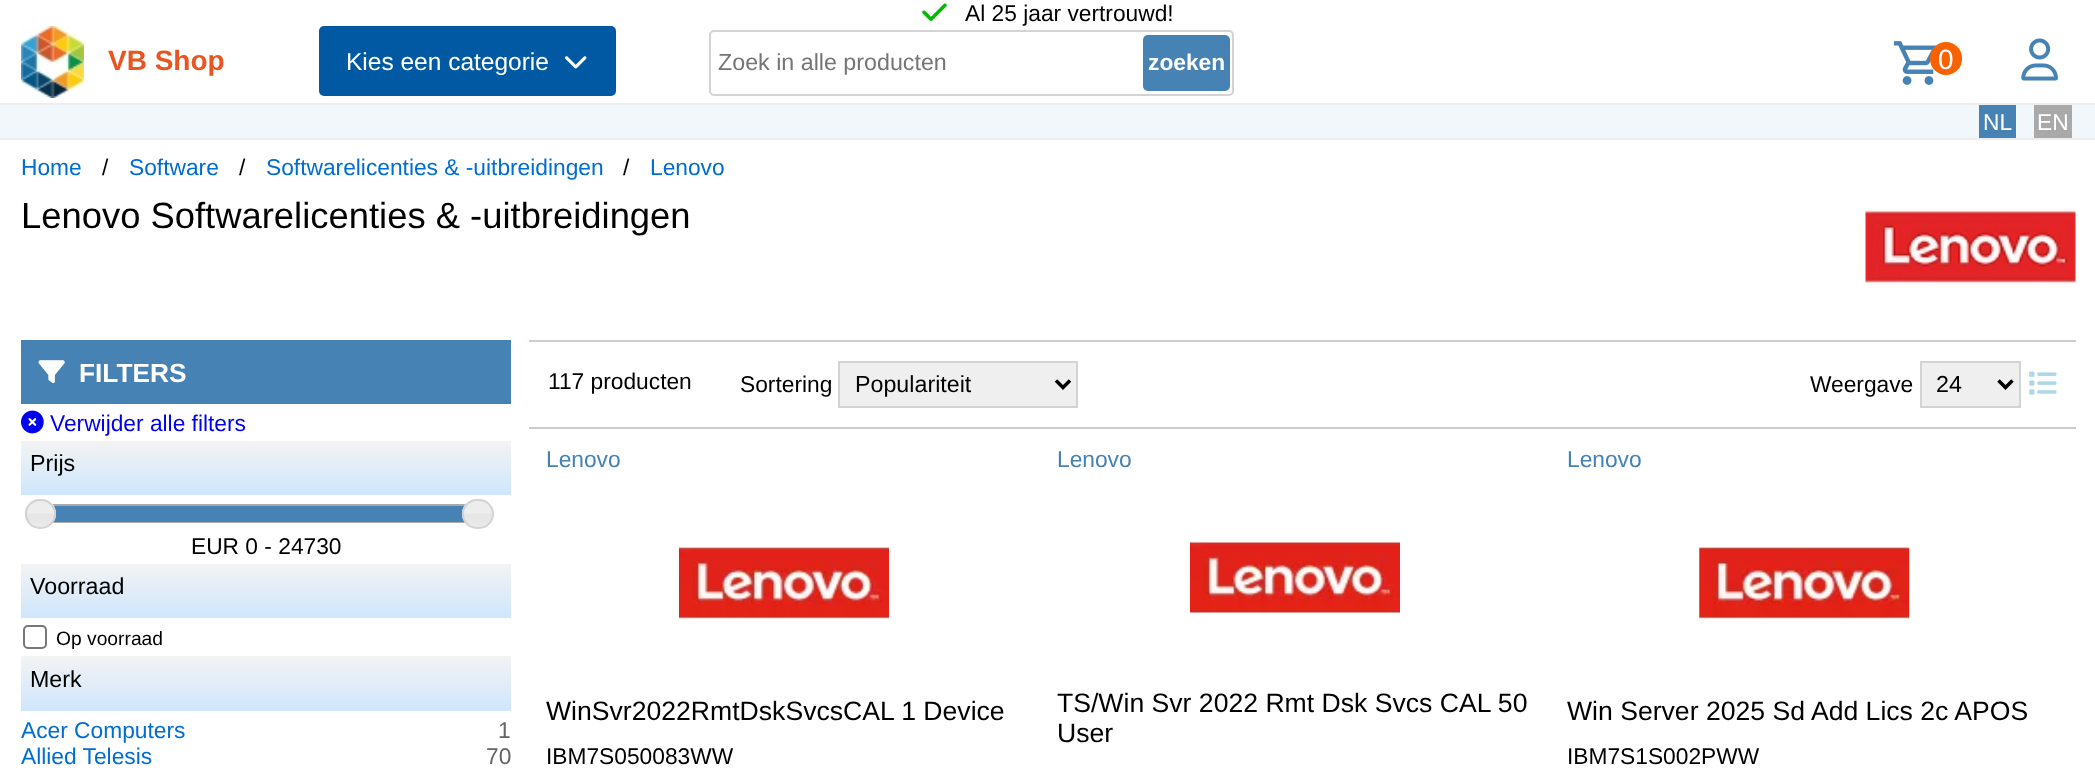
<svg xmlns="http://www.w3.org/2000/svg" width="2095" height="770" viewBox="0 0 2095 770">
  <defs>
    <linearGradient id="g1" gradientUnits="userSpaceOnUse" x1="266" y1="441" x2="266" y2="495"><stop offset="0" stop-color="#f3f3f3"/><stop offset="1" stop-color="#cfe6fd"/></linearGradient>
    <linearGradient id="g2" gradientUnits="userSpaceOnUse" x1="266" y1="564" x2="266" y2="618"><stop offset="0" stop-color="#f3f3f3"/><stop offset="1" stop-color="#cfe6fd"/></linearGradient>
    <linearGradient id="g3" gradientUnits="userSpaceOnUse" x1="266" y1="656" x2="266" y2="711"><stop offset="0" stop-color="#f3f3f3"/><stop offset="1" stop-color="#cfe6fd"/></linearGradient>
  </defs>
  <rect width="100%" height="100%" fill="#fff"/>
  <path d="M0 138h2095v2H0z" fill="#eeeded"/>
  <image x="922" y="3" width="25" height="18" href="img/1.png"/>
  <path d="M0 103h2095v2H0z" fill="#eeeded"/>
  <image x="21" y="26" width="63" height="72" href="img/2.png"/>
  <rect x="319" y="26" width="297" height="70" rx="5" fill="#0059a2"/>
  <image x="565" y="56" width="22" height="13" href="img/3.png"/>
  <rect x="710" y="31" width="523" height="64" rx="4" fill="none" stroke="#d3d3d3" stroke-width="2"/>
  <rect x="1143" y="35" width="87" height="56" rx="5" fill="#4682b4"/>
  <image x="1893" y="41" width="44" height="44" href="img/4.png"/>
  <rect x="1930" y="42" width="32" height="33" rx="16" fill="#f86200"/>
  <image x="2021" y="38" width="37" height="43" href="img/5.png"/>
  <path d="M0 105h2095v33H0z" fill="#f2f7fc"/>
  <path d="M1979 105h37v33H1979z" fill="#4682b4"/>
  <path d="M2034 105h38v33H2034z" fill="#a9a9a9"/>
  <image x="1865" y="209" width="211" height="75" href="img/6.png"/>
  <path d="M21 340h490v64H21z" fill="#4682b4"/>
  <image x="38" y="360" width="27" height="24" href="img/7.png"/>
  <image x="21" y="410" width="23" height="24" href="img/8.png"/>
  <path d="M21 441h490v54H21z" fill="url(#g1)"/>
  <path d="M40 505h439v17H40z" fill="none" stroke="#aaa" stroke-width="2"/>
  <path d="M53 506h412v16H53z" fill="#4682b4"/>
  <image x="24" y="499" width="32" height="29" href="img/9.png"/>
  <rect x="26" y="500" width="29" height="28" rx="14" fill="none" stroke="#d3d3d3" stroke-width="2"/>
  <image x="462" y="499" width="31" height="29" href="img/10.png"/>
  <rect x="463" y="500" width="30" height="28" rx="14" fill="none" stroke="#d3d3d3" stroke-width="2"/>
  <path d="M21 564h490v54H21z" fill="url(#g2)"/>
  <rect x="24" y="626" width="22" height="22" rx="4" fill="none" stroke="#777" stroke-width="2"/>
  <path d="M21 656h490v55H21z" fill="url(#g3)"/>
  <path d="M529 340h1547v2H529z" fill="#ccc"/>
  <path d="M529 427h1547v2H529z" fill="#ccc"/>
  <path d="M839 362h238v45H839z" fill="#efefef" stroke="#d3d3d3" stroke-width="2"/>
  <path d="M1056 380.5L1063 387.5L1070 380.5" fill="none" stroke="#000" stroke-width="3.5"/>
  <path d="M1921 362h99v45H1921z" fill="#efefef" stroke="#d3d3d3" stroke-width="2"/>
  <path d="M1998.5 380.5L2005.5 387.5L2012.5 380.5" fill="none" stroke="#000" stroke-width="3.5"/>
  <image x="2029" y="371" width="28" height="24" href="img/11.png"/>
  <image x="679" y="547" width="210" height="72" href="img/12.png"/>
  <image x="1190" y="542" width="210" height="71" href="img/13.png"/>
  <image x="1699" y="547" width="211" height="72" href="img/14.png"/>
  <text x="965" y="21" font-family="Liberation Sans" font-size="22.75" fill="#000">Al 25 jaar vertrouwd!</text>
  <text x="108" y="70" font-family="Liberation Sans" font-size="28" font-weight="bold" fill="#e95420">VB Shop</text>
  <text x="346" y="70" font-family="Liberation Sans" font-size="24.5" fill="#fff">Kies een categorie</text>
  <text x="718" y="70" font-family="Liberation Sans" font-size="23.25" fill="#757575">Zoek in alle producten</text>
  <text x="1148" y="70" font-family="Liberation Sans" font-size="22.75" font-weight="bold" fill="#fff">zoeken</text>
  <text x="1938" y="69" font-family="Liberation Sans" font-size="28" fill="#fff">0</text>
  <g font-family="Liberation Sans" font-size="22.75" fill="#fff">
    <text x="1983" y="130">NL</text>
    <text x="2037" y="130">EN</text>
  </g>
  <text x="21" y="175" font-family="Liberation Sans" font-size="22.75" fill="#006dd3">Home</text>
  <text x="102" y="175" font-family="Liberation Sans" font-size="22.75" fill="#000">/</text>
  <text x="129" y="175" font-family="Liberation Sans" font-size="22.75" fill="#006dd3">Software</text>
  <text x="239" y="175" font-family="Liberation Sans" font-size="22.75" fill="#000">/</text>
  <text x="266" y="175" font-family="Liberation Sans" font-size="22.75" fill="#006dd3">Softwarelicenties &amp; -uitbreidingen</text>
  <text x="623" y="175" font-family="Liberation Sans" font-size="22.75" fill="#000">/</text>
  <text x="650" y="175" font-family="Liberation Sans" font-size="22.75" fill="#006dd3">Lenovo</text>
  <text x="21" y="228" font-family="Liberation Sans" font-size="36.4" fill="#000">Lenovo Softwarelicenties &amp; -uitbreidingen</text>
  <text x="79" y="382" font-family="Liberation Sans" font-size="26.25" font-weight="bold" fill="#fff">FILTERS</text>
  <text x="50" y="431" font-family="Liberation Sans" font-size="22.75" fill="#00e">Verwijder alle filters</text>
  <text x="30" y="471" font-family="Liberation Sans" font-size="23.25" fill="#000">Prijs</text>
  <text x="191" y="554" font-family="Liberation Sans" font-size="22.75" fill="#000">EUR 0 - 24730</text>
  <text x="30" y="594" font-family="Liberation Sans" font-size="23.25" fill="#000">Voorraad</text>
  <text x="56" y="645" font-family="Liberation Sans" font-size="19.25" fill="#000">Op voorraad</text>
  <text x="30" y="687" font-family="Liberation Sans" font-size="23.25" fill="#000">Merk</text>
  <text x="21" y="738" font-family="Liberation Sans" font-size="22.75" fill="#006dd3">Acer Computers</text>
  <text x="498" y="738" font-family="Liberation Sans" font-size="22.75" fill="#656565">1</text>
  <text x="21" y="764" font-family="Liberation Sans" font-size="22.75" fill="#006dd3">Allied Telesis</text>
  <text x="486" y="764" font-family="Liberation Sans" font-size="22.75" fill="#656565">70</text>
  <g font-family="Liberation Sans" font-size="22.75" fill="#000">
    <text x="548" y="389">117 producten</text>
    <text x="740" y="392">Sortering</text>
  </g>
  <text x="855" y="392" font-family="Liberation Sans" font-size="23.25" fill="#000">Populariteit</text>
  <text x="1810" y="392" font-family="Liberation Sans" font-size="22.75" fill="#000">Weergave</text>
  <text x="1936" y="392" font-family="Liberation Sans" font-size="23.25" fill="#000">24</text>
  <text x="546" y="467" font-family="Liberation Sans" font-size="22.75" fill="#4682b4">Lenovo</text>
  <text x="546" y="720" font-family="Liberation Sans" font-size="26.6" fill="#000">WinSvr2022RmtDskSvcsCAL 1 Device</text>
  <text x="546" y="764" font-family="Liberation Sans" font-size="22.75" fill="#000">IBM7S050083WW</text>
  <text x="1057" y="467" font-family="Liberation Sans" font-size="22.75" fill="#4682b4">Lenovo</text>
  <g font-family="Liberation Sans" font-size="26.6" fill="#000">
    <text x="1057" y="712">TS/Win Svr 2022 Rmt Dsk Svcs CAL 50</text>
    <text x="1057" y="742">User</text>
  </g>
  <text x="1567" y="467" font-family="Liberation Sans" font-size="22.75" fill="#4682b4">Lenovo</text>
  <text x="1567" y="720" font-family="Liberation Sans" font-size="26.6" fill="#000">Win Server 2025 Sd Add Lics 2c APOS</text>
  <text x="1567" y="764" font-family="Liberation Sans" font-size="22.75" fill="#000">IBM7S1S002PWW</text>
</svg>
